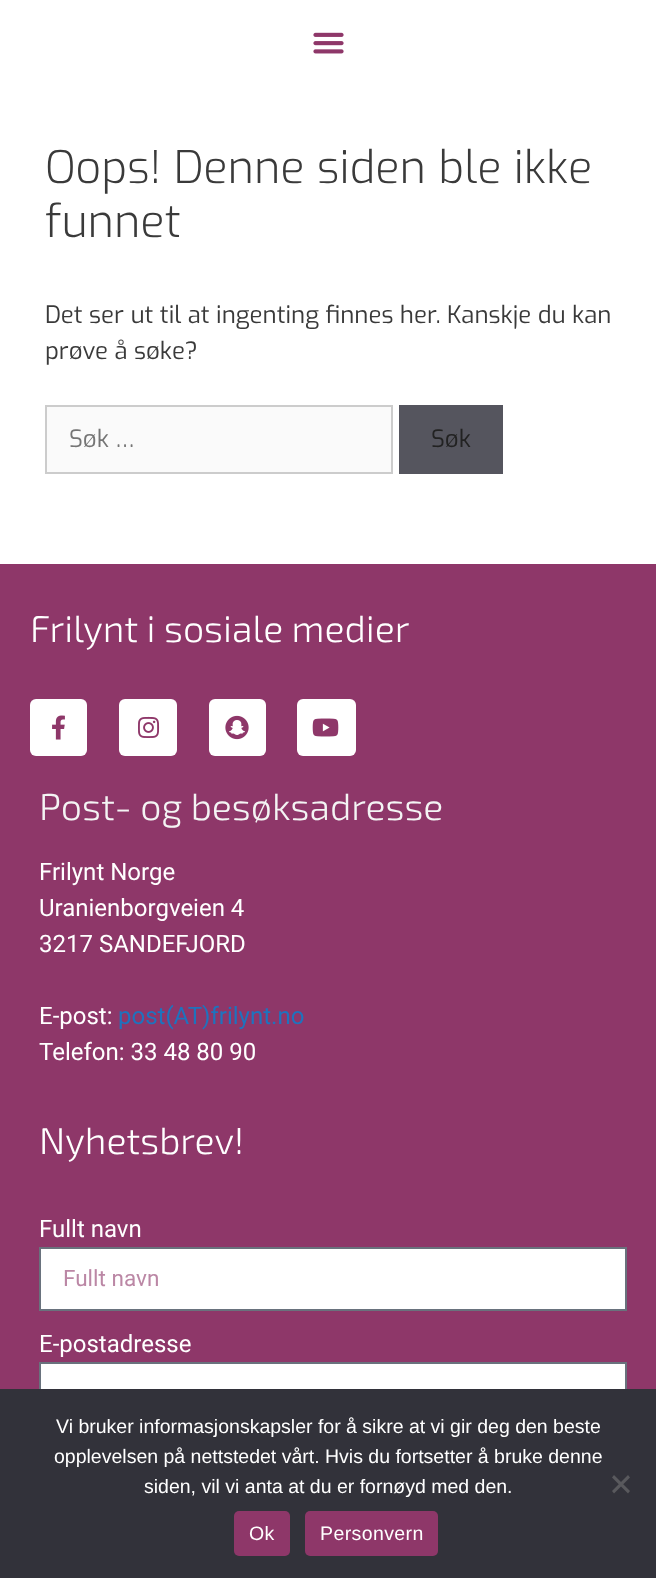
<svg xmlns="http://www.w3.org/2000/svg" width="656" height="1578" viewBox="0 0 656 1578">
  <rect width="100%" height="100%" fill="#fff"/>
  <image x="313" y="32" width="31" height="22" href="img/1.png"/>
  <path d="M46 406h346v67H46z" fill="#fafafa" stroke="#ccc" stroke-width="2"/>
  <path d="M399 405h104v69H399z" fill="#55555e"/>
  <path d="M0 564h656v825H0z" fill="#8e3769"/>
  <rect x="30" y="699" width="57" height="57" rx="6" fill="#fff"/>
  <image x="52" y="715" width="13" height="25" href="img/2.png"/>
  <rect x="119" y="699" width="58" height="57" rx="6" fill="#fff"/>
  <image x="138" y="716" width="22" height="22" href="img/3.png"/>
  <rect x="209" y="699" width="57" height="57" rx="6" fill="#fff"/>
  <image x="225" y="715" width="24" height="25" href="img/4.png"/>
  <rect x="297" y="699" width="59" height="57" rx="6" fill="#fff"/>
  <image x="312" y="718" width="27" height="19" href="img/5.png"/>
  <path d="M40 1248h586v62H40z" fill="#fff" stroke="#69727d" stroke-width="2"/>
  <path d="M41 1364h584v25H41z" fill="#fff"/>
  <path d="M40 1363h586v63H40z" fill="none" stroke="#69727d" stroke-width="2"/>
  <path d="M0 1389h656v189H0z" fill="#32323a"/>
  <path d="M628 1475L630 1477.5L614 1493.5L612 1491Z" fill="#59595d"/>
  <path d="M612 1477.5L614 1475L630 1491L628 1493.5Z" fill="#59595d"/>
  <rect x="234" y="1511" width="56" height="45" rx="5" fill="#8e3769"/>
  <rect x="305" y="1511" width="133" height="45" rx="5" fill="#8e3769"/>
  <g font-family="Exo" font-size="45" font-weight="300" fill="#3a3a3a">
    <text x="45" y="183">Oops! Denne siden ble ikke</text>
    <text x="45" y="237">funnet</text>
  </g>
  <g font-family="Exo" font-size="24" fill="#3a3a3a">
    <text x="45" y="323">Det ser ut til at ingenting finnes her. Kanskje du kan</text>
    <text x="45" y="359">prøve å søke?</text>
  </g>
  <text x="69" y="447" font-family="Exo" font-size="24" fill="#757575">Søk …</text>
  <text x="431" y="447" font-family="Exo" font-size="24" fill="#222">Søk</text>
  <text x="30" y="642" font-family="'Exo 2'" font-size="37.5" font-weight="300" fill="#fff">Frilynt i sosiale medier</text>
  <text x="39" y="820" font-family="'Exo 2'" font-size="37.5" font-weight="300" fill="#f4f4f4">Post- og besøksadresse</text>
  <g font-family="Roboto" font-size="24" fill="#fff">
    <text x="39" y="880">Frilynt Norge</text>
    <text x="39" y="916">Uranienborgveien 4</text>
    <text x="39" y="952">3217 SANDEFJORD</text>
    <text x="39" y="1024">E-post:</text>
  </g>
  <text x="118" y="1024" font-family="Roboto" font-size="24" fill="#1e73be">post(AT)frilynt.no</text>
  <text x="39" y="1060" font-family="Roboto" font-size="24" fill="#fff">Telefon: 33 48 80 90</text>
  <text x="39" y="1154" font-family="'Exo 2'" font-size="37.5" font-weight="300" fill="#fff">Nyhetsbrev!</text>
  <text x="39" y="1237" font-family="Roboto" font-size="24" fill="#fff">Fullt navn</text>
  <text x="63" y="1286" font-family="Roboto" font-size="22.5" fill="#bb87a5">Fullt navn</text>
  <text x="39" y="1352" font-family="Roboto" font-size="24" fill="#fff">E-postadresse</text>
  <g font-family="Liberation Sans" font-size="19.5" fill="#fff">
    <text x="56" y="1433">Vi bruker informasjonskapsler for å sikre at vi gir deg den beste</text>
    <text x="54" y="1463">opplevelsen på nettstedet vårt. Hvis du fortsetter å bruke denne</text>
    <text x="144" y="1493">siden, vil vi anta at du er fornøyd med den.</text>
  </g>
  <g font-family="Liberation Sans" font-size="19.5" letter-spacing="0.4" fill="#fff">
    <text x="249" y="1540">Ok</text>
    <text x="320" y="1540">Personvern</text>
  </g>
</svg>
